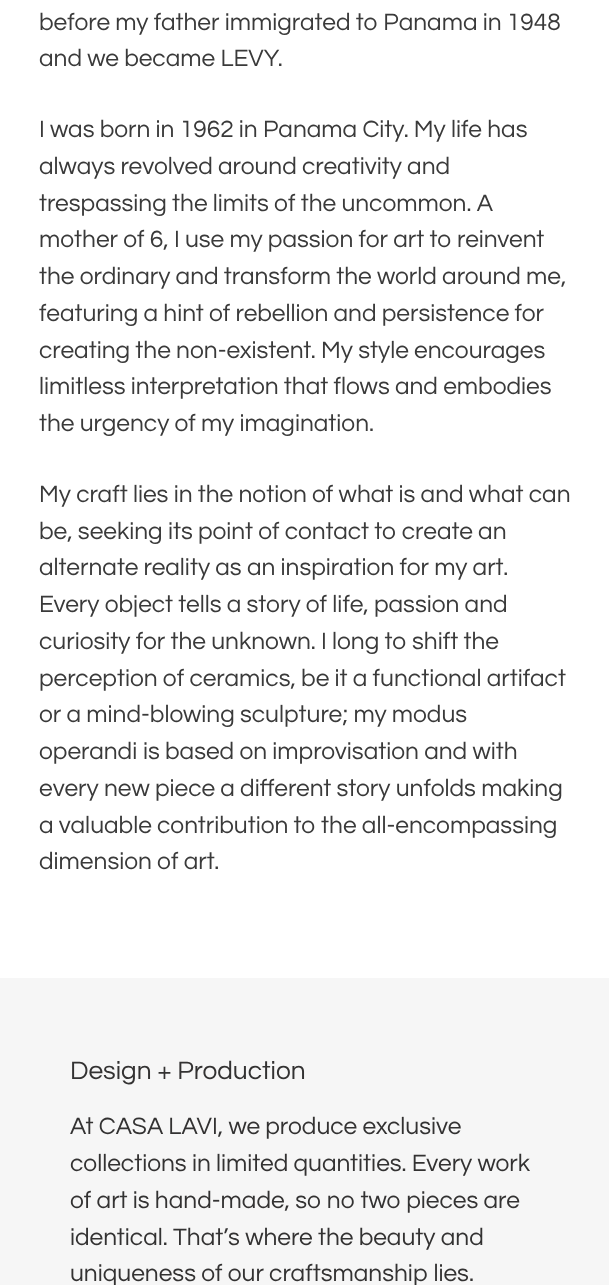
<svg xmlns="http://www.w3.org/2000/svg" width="609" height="1285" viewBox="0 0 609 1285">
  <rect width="100%" height="100%" fill="#fff"/>
  <path d="M0 978h609v307H0z" fill="#f6f6f6"/>
  <g font-family="Questrial" font-size="24.5" fill="#3a3a3a">
    <text x="39" y="30">before my father immigrated to Panama in 1948</text>
    <text x="39" y="66">and we became LEVY.</text>
    <text x="39" y="137">I was born in 1962 in Panama City. My life has</text>
    <text x="39" y="174">always revolved around creativity and</text>
    <text x="39" y="211">trespassing the limits of the uncommon. A</text>
    <text x="39" y="247">mother of 6, I use my passion for art to reinvent</text>
    <text x="39" y="284">the ordinary and transform the world around me,</text>
    <text x="39" y="321">featuring a hint of rebellion and persistence for</text>
    <text x="39" y="358">creating the non-existent. My style encourages</text>
    <text x="39" y="394">limitless interpretation that flows and embodies</text>
    <text x="39" y="431">the urgency of my imagination.</text>
    <text x="39" y="502">My craft lies in the notion of what is and what can</text>
    <text x="39" y="539">be, seeking its point of contact to create an</text>
    <text x="39" y="575">alternate reality as an inspiration for my art.</text>
    <text x="39" y="612">Every object tells a story of life, passion and</text>
    <text x="39" y="649">curiosity for the unknown. I long to shift the</text>
    <text x="39" y="686">perception of ceramics, be it a functional artifact</text>
    <text x="39" y="722">or a mind-blowing sculpture; my modus</text>
    <text x="39" y="759">operandi is based on improvisation and with</text>
    <text x="39" y="796">every new piece a different story unfolds making</text>
    <text x="39" y="833">a valuable contribution to the all-encompassing</text>
    <text x="39" y="869">dimension of art.</text>
  </g>
  <text x="70" y="1079" font-family="Questrial" font-size="26.25" fill="#333232">Design + Production</text>
  <g font-family="Questrial" font-size="24.5" fill="#333232">
    <text x="70" y="1134">At CASA LAVI, we produce exclusive</text>
    <text x="70" y="1171">collections in limited quantities. Every work</text>
    <text x="70" y="1208">of art is hand-made, so no two pieces are</text>
    <text x="70" y="1245">identical. That’s where the beauty and</text>
    <text x="70" y="1281">uniqueness of our craftsmanship lies.</text>
  </g>
</svg>
